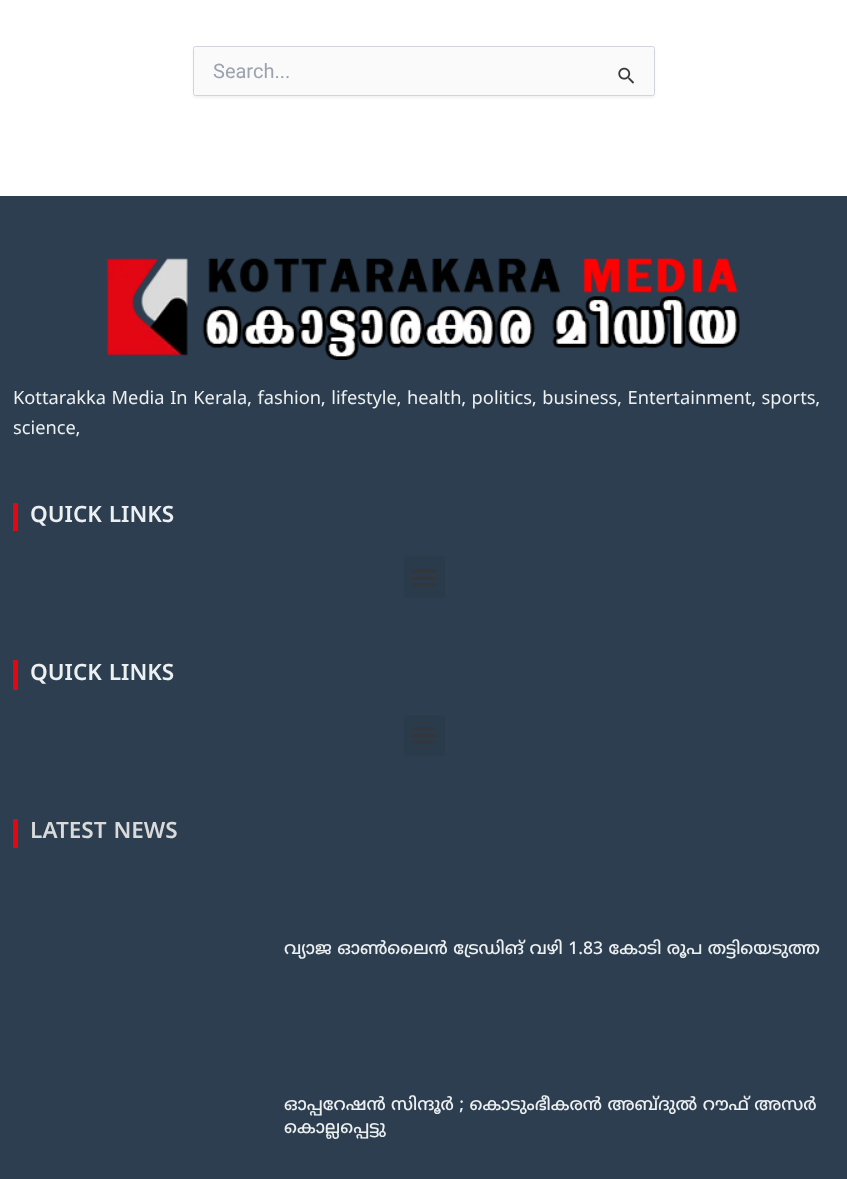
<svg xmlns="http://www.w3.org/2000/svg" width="847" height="1179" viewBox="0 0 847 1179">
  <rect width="100%" height="100%" fill="#fff"/>
  <rect x="193" y="48" width="462" height="50" rx="2.5" fill="#0000000d" filter="blur(1px)"/>
  <rect x="193.5" y="46.5" width="461" height="49" rx="2" fill="#fafafa" stroke="#d1d5db"/>
  <image x="618" y="67" width="16" height="17" href="img/1.png"/>
  <path d="M0 196h847v983H0z" fill="#2c3e50"/>
  <image x="107" y="258" width="633" height="102" href="img/2.png"/>
  <path d="M13 503h5v28H13z" fill="#e30613"/>
  <rect x="404" y="556" width="41" height="42" rx="4" fill="#2a3b4c"/>
  <image x="411" y="569" width="25" height="18" href="img/3.png"/>
  <path d="M13 660h5v30H13z" fill="#e30613"/>
  <rect x="404" y="715" width="41" height="41" rx="4" fill="#2a3b4c"/>
  <image x="411" y="727" width="26" height="17" href="img/4.png"/>
  <path d="M13 819h5v29H13z" fill="#e30613"/>
  <text x="213" y="78" font-family="Roboto" font-size="20" fill="#9ca3af">Search...</text>
  <g font-family="Noto Sans Malayalam" font-size="18.25" fill="#ecf0f1">
    <text x="13" y="404">Kottarakka Media In Kerala, fashion, lifestyle, health, politics, business, Entertainment, sports,</text>
    <text x="13" y="434">science,</text>
  </g>
  <g font-family="Noto Sans Malayalam" font-size="22.5" font-weight="600" fill="#ecf0f1">
    <text x="30" y="522">QUICK LINKS</text>
    <text x="30" y="680">QUICK LINKS</text>
  </g>
  <text x="30" y="838" font-family="Noto Sans Malayalam" font-size="22.5" font-weight="600" fill="#dadada">LATEST NEWS</text>
  <g font-family="Noto Sans Malayalam" font-size="17.5" font-weight="500" fill="#ecf0f1">
    <text x="284" y="954">വ്യാജ ഓൺലൈൻ ട്രേഡിങ് വഴി 1.83 കോടി രൂപ തട്ടിയെടുത്ത</text>
    <text x="284" y="1110">ഓപ്പറേഷൻ സിന്ദൂർ ; കൊടുംഭീകരൻ അബ്ദുൽ റൗഫ് അസർ</text>
    <text x="284" y="1133">കൊല്ലപ്പെട്ടു</text>
  </g>
</svg>
